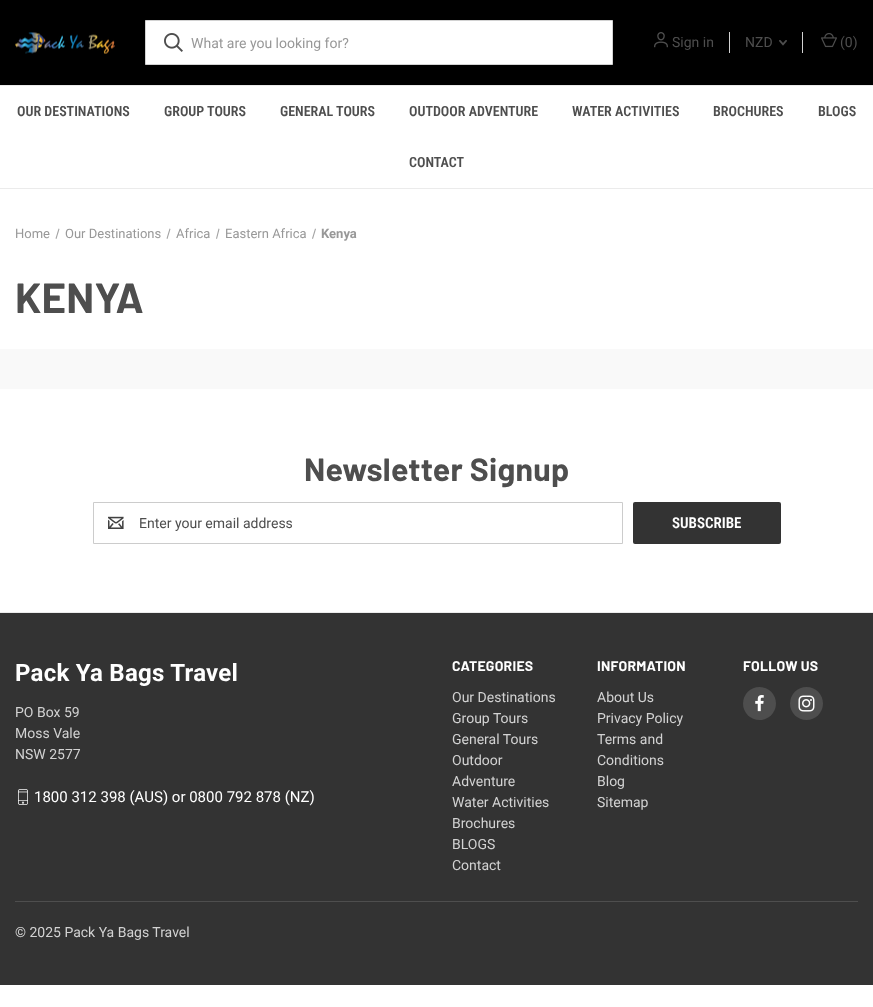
<svg xmlns="http://www.w3.org/2000/svg" width="873" height="1007" viewBox="0 0 873 1007">
  <rect width="100%" height="100%" fill="#fff"/>
  <path d="M0 0h873v85H0z" fill="#000"/>
  <image x="15" y="32" width="100" height="22" href="img/1.png"/>
  <path d="M145.5 20.5h467v44H145.5z" fill="#fff" stroke="#d2d2d2"/>
  <image x="164" y="33" width="19" height="19" href="img/2.png"/>
  <image x="654" y="32" width="14" height="16" href="img/3.png"/>
  <path d="M729 32h1v21H729z" fill="#d2d2d2"/>
  <image x="779" y="40" width="8" height="6" href="img/4.png"/>
  <path d="M802 32h1v21H802z" fill="#d2d2d2"/>
  <image x="821" y="33" width="16" height="15" href="img/5.png"/>
  <path d="M0 85h873v1H0z" fill="#ebebeb"/>
  <path d="M0 188h873v1H0z" fill="#ebebeb"/>
  <path d="M58.5 228.5L59.5 229L56.5 239L55.5 238.5Z" fill="#a3a3a3"/>
  <path d="M315 228.5L316 229L313 239L312 238.5Z" fill="#a3a3a3"/>
  <path d="M0 349h873v40H0z" fill="#f9f9f9"/>
  <path d="M93.5 502.5h529v41H93.5z" fill="none" stroke="#ccc"/>
  <image x="108" y="516" width="16" height="13" href="img/6.png"/>
  <rect x="633" y="502" width="148" height="42" rx="2" fill="#333"/>
  <path d="M0 613h873v372H0z" fill="#333"/>
  <path d="M0 612h873v1H0z" fill="#ebebeb"/>
  <image x="18" y="789" width="10" height="16" href="img/7.png"/>
  <circle cx="759.5" cy="703.5" r="16.5" fill="#4e4e4e"/>
  <image x="755" y="695" width="9" height="17" href="img/8.png"/>
  <circle cx="806.5" cy="703.5" r="16.5" fill="#4e4e4e"/>
  <image x="798" y="695" width="17" height="17" href="img/9.png"/>
  <path d="M15 901h843v1H15z" fill="#4e4e4e"/>
  <text x="191" y="48" font-family="Roboto" font-size="14" fill="#989898">What are you looking for?</text>
  <g font-family="Roboto" font-size="14" fill="#4e4e4e">
    <text x="672" y="47">Sign in</text>
    <text x="745" y="47">NZD</text>
    <text x="840" y="47">(0)</text>
  </g>
  <g font-family="Roboto Condensed" font-size="14" font-weight="600" fill="#4e4e4e">
    <text x="17" y="116">OUR DESTINATIONS</text>
    <text x="164" y="116">GROUP TOURS</text>
    <text x="280" y="116">GENERAL TOURS</text>
    <text x="409" y="116">OUTDOOR ADVENTURE</text>
    <text x="572" y="116">WATER ACTIVITIES</text>
    <text x="713" y="116">BROCHURES</text>
    <text x="818" y="116">BLOGS</text>
    <text x="409" y="167">CONTACT</text>
  </g>
  <g font-family="Roboto" font-size="13" fill="#989898">
    <text x="15" y="238">Home</text>
    <text x="65" y="238">Our Destinations</text>
    <text x="176" y="238">Africa</text>
  </g>
  <path d="M169.5 228.5L170.5 229L167.5 239L166.5 238.5ZM218.5 228.5L219.5 229L217 239L216 238.5Z" fill="#a3a3a3"/>
  <text x="225" y="238" font-family="Roboto" font-size="13" fill="#989898">Eastern Africa</text>
  <text x="321" y="238" font-family="Roboto" font-size="13" font-weight="bold" fill="#989898">Kenya</text>
  <text x="15" y="313" font-family="Barlow" font-size="42" font-weight="bold" letter-spacing="0.25" fill="#4e4e4e">KENYA</text>
  <text x="304" y="481" font-family="Barlow" font-size="32" font-weight="bold" letter-spacing="0.25" fill="#4e4e4e">Newsletter Signup</text>
  <text x="139" y="528" font-family="Roboto" font-size="14" fill="#4e4e4e">Enter your email address</text>
  <text x="672" y="528" font-family="Roboto Condensed" font-size="15" font-weight="600" fill="#fff">SUBSCRIBE</text>
  <text x="15" y="681" font-family="Roboto" font-size="24" font-weight="bold" letter-spacing="0.25" fill="#fff">Pack Ya Bags Travel</text>
  <g font-family="Roboto" font-size="14" fill="#d2d2d2">
    <text x="15" y="717">PO Box 59</text>
    <text x="15" y="738">Moss Vale</text>
    <text x="15" y="759">NSW 2577</text>
  </g>
  <text x="34" y="802" font-family="Roboto" font-size="15" fill="#fff">1800 312 398 (AUS) or 0800 792 878 (NZ)</text>
  <text x="452" y="671" font-family="Barlow" font-size="14" font-weight="bold" letter-spacing="0.25" fill="#fff">CATEGORIES</text>
  <g font-family="Roboto" font-size="14" fill="#d2d2d2">
    <text x="452" y="702">Our Destinations</text>
    <text x="452" y="723">Group Tours</text>
    <text x="452" y="744">General Tours</text>
    <text x="452" y="765">Outdoor</text>
    <text x="452" y="786">Adventure</text>
    <text x="452" y="807">Water Activities</text>
    <text x="452" y="828">Brochures</text>
    <text x="452" y="849">BLOGS</text>
    <text x="452" y="870">Contact</text>
  </g>
  <text x="597" y="671" font-family="Barlow" font-size="14" font-weight="bold" letter-spacing="0.25" fill="#fff">INFORMATION</text>
  <g font-family="Roboto" font-size="14" fill="#d2d2d2">
    <text x="597" y="702">About Us</text>
    <text x="597" y="723">Privacy Policy</text>
    <text x="597" y="744">Terms and</text>
    <text x="597" y="765">Conditions</text>
    <text x="597" y="786">Blog</text>
    <text x="597" y="807">Sitemap</text>
  </g>
  <text x="743" y="671" font-family="Barlow" font-size="14" font-weight="bold" letter-spacing="0.25" fill="#fff">FOLLOW US</text>
  <text x="15" y="937" font-family="Roboto" font-size="14" fill="#d2d2d2">© 2025 Pack Ya Bags Travel</text>
</svg>
